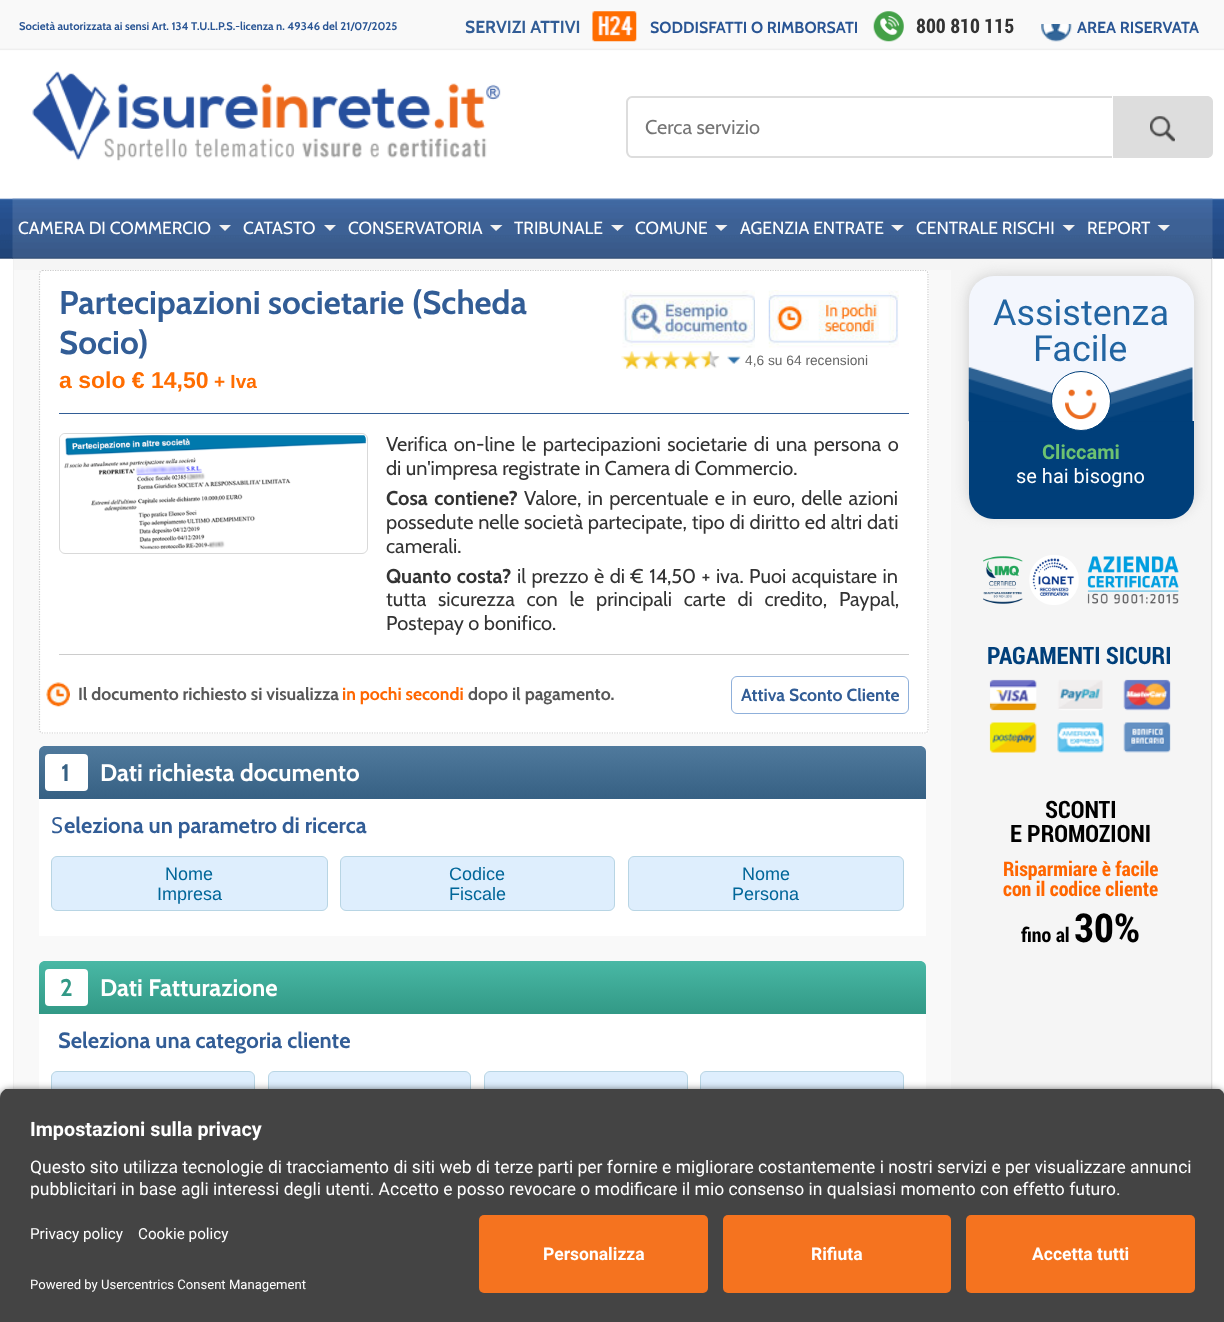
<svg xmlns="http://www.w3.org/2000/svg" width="1224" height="1322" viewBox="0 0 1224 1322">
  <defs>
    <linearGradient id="g1" gradientUnits="userSpaceOnUse" x1="483" y1="746" x2="483" y2="799"><stop offset="0" stop-color="#507a9d"/><stop offset="1" stop-color="#366083"/></linearGradient>
    <linearGradient id="g2" gradientUnits="userSpaceOnUse" x1="483" y1="961" x2="483" y2="1014"><stop offset="0" stop-color="#49b8a5"/><stop offset="1" stop-color="#329986"/></linearGradient>
    <clipPath id="clip1"><path d="M10 1088H1215C1220.5 1088 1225 1092.5 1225 1098V1205H0V1098C0 1092.5 4.5 1088 10 1088Z"/></clipPath>
  </defs>
  <rect width="100%" height="100%" fill="#fff"/>
  <image x="0" y="0" width="1224" height="259" href="img/1.png"/>
  <image x="592" y="11" width="45" height="31" href="img/2.png"/>
  <image x="873" y="11" width="31" height="31" href="img/3.png"/>
  <image x="1041" y="24" width="31" height="18" href="img/4.png"/>
  <image x="32" y="71" width="469" height="90" href="img/5.png"/>
  <path d="M1106 96H1207C1210.5 96 1213 98.5 1213 102V152C1213 155.5 1210.5 158 1207 158H1106Z" fill="#ddd"/>
  <path d="M632 96H1113V158H632C628.5 158 626 155.5 626 152V102C626 98.5 628.5 96 632 96Z" fill="#fff"/>
  <path d="M632 96H1112V158H632C629 158 626 155 626 151V102C626 99 629 96 632 96ZM632 98H1112V156H632C630 156 628 154 628 151V102C628 100 630 98 632 98Z" fill="#ddd" fill-rule="evenodd"/>
  <image x="1150" y="116" width="25" height="26" href="img/6.png"/>
  <path d="M14 258h1199v831H14z" fill="#f5f5f5"/>
  <path d="M1211 258h1v831H1211z" fill="#e1e1e1"/>
  <path d="M13 258h1v831H13z" fill="#f1f1f1"/>
  <path d="M14 270h937v819H14z" fill="#f9f9f9"/>
  <rect x="969" y="276" width="225" height="238" rx="25" fill="#ccc" filter="blur(7px)"/>
  <image x="12" y="198" width="1201" height="61" href="img/7.png"/>
  <path d="M219 225H231L225 231Z" fill="#f1f1f1"/>
  <path d="M324 225H336L330 231Z" fill="#f1f1f1"/>
  <path d="M490 225H502.5L496 231Z" fill="#f1f1f1"/>
  <path d="M611 225H624L617.5 231Z" fill="#f1f1f1"/>
  <path d="M715 225H727.5L721 231Z" fill="#f1f1f1"/>
  <path d="M891 225H904L897.5 231Z" fill="#f1f1f1"/>
  <path d="M1062.5 225H1075L1069 231Z" fill="#f1f1f1"/>
  <path d="M1157.5 225H1170L1164 231Z" fill="#f1f1f1"/>
  <rect x="39" y="270" width="890" height="464" rx="4" fill="#fff"/>
  <path d="M42.5 270.5H925C926.5 270.5 928 272 928 274V730C928 731.5 926.5 733 925 733H42.5C41 733 39.5 731.5 39.5 730V274C39.5 272 41 270.5 42.5 270.5Z" fill="none" stroke="#ccc" stroke-width="1.2" stroke-dasharray="1.25 1.25"/>
  <image x="622" y="290" width="133" height="58" href="img/8.png"/>
  <image x="768" y="290" width="131" height="58" href="img/9.png"/>
  <image x="621" y="351" width="99" height="18" href="img/10.png"/>
  <image x="727" y="356" width="14" height="8" href="img/11.png"/>
  <path d="M59 413h850v1H59z" fill="#325d96"/>
  <rect x="59.5" y="433.5" width="308" height="120" rx="5.5" fill="none" stroke="#d9d9d9"/>
  <image x="60" y="434" width="307" height="115" href="img/12.png"/>
  <path d="M59 654h850v1H59z" fill="#ccc"/>
  <image x="46" y="682" width="24" height="25" href="img/13.png"/>
  <rect x="731.5" y="676.5" width="177" height="37" rx="5.5" fill="none" stroke="#8fb0db"/>
  <path d="M45 746H920C923.5 746 926 748.5 926 752V799H39V752C39 748.5 41.5 746 45 746Z" fill="url(#g1)"/>
  <rect x="45" y="754" width="43" height="37" rx="4" fill="#fff"/>
  <path d="M39 799h887v137H39z" fill="#fff"/>
  <rect x="51.5" y="856.5" width="276" height="54" rx="5.5" fill="#deeefd" stroke="#b8d5e4"/>
  <rect x="340.5" y="856.5" width="274" height="54" rx="5.5" fill="#deeefd" stroke="#b8d5e4"/>
  <rect x="628.5" y="856.5" width="275" height="54" rx="5.5" fill="#deeefd" stroke="#b8d5e4"/>
  <path d="M45 961H920C923.5 961 926 963.5 926 967V1014H39V967C39 963.5 41.5 961 45 961Z" fill="url(#g2)"/>
  <rect x="45" y="969" width="43" height="37" rx="4" fill="#fff"/>
  <path d="M39 1014h887v75H39z" fill="#fff"/>
  <rect x="51.5" y="1071.5" width="203" height="34" rx="5.5" fill="#deeefd" stroke="#b8d5e4"/>
  <rect x="268.5" y="1071.5" width="202" height="34" rx="5.5" fill="#deeefd" stroke="#b8d5e4"/>
  <rect x="484.5" y="1071.5" width="203" height="34" rx="5.5" fill="#deeefd" stroke="#b8d5e4"/>
  <rect x="700.5" y="1071.5" width="203" height="34" rx="5.5" fill="#deeefd" stroke="#b8d5e4"/>
  <rect x="969" y="276" width="225" height="238" rx="25" fill="#f3f6fd"/>
  <path d="M969 421H1194V494C1194 508 1183 519 1169 519H994C980 519 969 508 969 494Z" fill="#003f7a"/>
  <image x="968" y="367" width="225" height="55" href="img/14.png"/>
  <circle cx="1081" cy="401" r="29.5" fill="#fff" stroke="#003f7a"/>
  <image x="1065" y="389" width="32" height="31" href="img/15.png"/>
  <image x="983" y="555" width="196" height="50" href="img/16.png"/>
  <image x="989" y="679" width="182" height="74" href="img/17.png"/>
  <rect y="1091" width="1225" height="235" rx="10" fill="#000000cc" filter="blur(4.5px)"/>
  <g clip-path="url(#clip1)">
    <path d="M0 1089h1224v116H0z" fill="#444"/>
  </g>
  <path d="M0 1205h1224v117H0z" fill="#444"/>
  <rect x="479" y="1215" width="229" height="78" rx="5" fill="#f5731f"/>
  <rect x="723" y="1215" width="228" height="78" rx="5" fill="#f5731f"/>
  <rect x="966" y="1215" width="229" height="78" rx="5" fill="#f5731f"/>
  <text x="19" y="30" font-family="Cabin" font-size="11.25" font-weight="bold" fill="#295594">Società autorizzata ai sensi Art. 134 T.U.L.P.S.-licenza n. 49346 del 21/07/2025</text>
  <text x="465" y="33" font-family="Cabin" font-size="17.5" font-weight="bold" fill="#325d96">SERVIZI ATTIVI</text>
  <text x="650" y="33" font-family="Cabin" font-size="16" font-weight="bold" fill="#295594">SODDISFATTI O RIMBORSATI</text>
  <text x="916" y="33" font-family="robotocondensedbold" font-size="20" font-weight="bold" fill="#333">800 810 115</text>
  <text x="1077" y="33" font-family="Cabin" font-size="16" font-weight="bold" fill="#295594">AREA RISERVATA</text>
  <text x="645" y="134" font-family="Cabin" font-size="20" fill="#757575">Cerca servizio</text>
  <g font-family="Cabin" font-size="17.5" fill="#fff">
    <text x="18" y="234">CAMERA DI COMMERCIO</text>
    <text x="243" y="234">CATASTO</text>
    <text x="348" y="234">CONSERVATORIA</text>
    <text x="514" y="234">TRIBUNALE</text>
    <text x="635" y="234">COMUNE</text>
    <text x="740" y="234">AGENZIA ENTRATE</text>
    <text x="916" y="234">CENTRALE RISCHI</text>
    <text x="1087" y="234">REPORT</text>
  </g>
  <g font-family="Cabin" font-size="33" font-weight="bold" fill="#325d96">
    <text x="59" y="314">Partecipazioni societarie (Scheda</text>
    <text x="59" y="354">Socio)</text>
  </g>
  <text x="59" y="388" font-family="Liberation Sans" font-size="23" font-weight="bold" fill="#ff6d00">a solo € 14,50</text>
  <text x="214" y="388" font-family="Liberation Sans" font-size="19" font-weight="bold" fill="#ff6d00">+ Iva</text>
  <text x="745" y="365" font-family="Liberation Sans" font-size="13.75" fill="#666">4,6 su 64 recensioni</text>
  <g font-family="Cabin" font-size="20" fill="#333">
    <text x="386" y="451" word-spacing="2">Verifica on-line le partecipazioni societarie di una persona o</text>
    <text x="386" y="475">di un'impresa registrate in Camera di Commercio.</text>
  </g>
  <text x="386" y="505" word-spacing="2" font-family="Cabin" font-size="20" font-weight="bold" fill="#333">Cosa contiene?</text>
  <g font-family="Cabin" font-size="20" fill="#333">
    <text x="524" y="505" word-spacing="1.75">Valore, in percentuale e in euro, delle azioni</text>
    <text x="386" y="529" word-spacing="0.25">possedute nelle società partecipate, tipo di diritto ed altri dati</text>
    <text x="386" y="553">camerali.</text>
  </g>
  <text x="386" y="583" word-spacing="1" font-family="Cabin" font-size="20" font-weight="bold" fill="#333">Quanto costa?</text>
  <g font-family="Cabin" font-size="20" fill="#333">
    <text x="517" y="583" word-spacing="1">il prezzo è di € 14,50 + iva. Puoi acquistare in</text>
    <text x="386" y="606" word-spacing="7.25">tutta sicurezza con le principali carte di credito, Paypal,</text>
    <text x="386" y="630">Postepay o bonifico.</text>
  </g>
  <text x="78" y="700" font-family="Cabin" font-size="17.5" font-weight="bold" fill="#585858">Il documento richiesto si visualizza</text>
  <text x="342" y="700" font-family="Cabin" font-size="17.5" font-weight="bold" fill="#f60">in pochi secondi</text>
  <text x="468" y="700" font-family="Cabin" font-size="17.5" font-weight="bold" fill="#585858">dopo il pagamento.</text>
  <text x="741" y="701" font-family="Cabin" font-size="17.5" font-weight="bold" fill="#325d96">Attiva Sconto Cliente</text>
  <text x="61" y="781" font-family="Cabin" font-size="24" font-weight="bold" fill="#366083">1</text>
  <text x="100" y="781" font-family="Cabin" font-size="24" font-weight="bold" fill="#fff">Dati richiesta documento</text>
  <text x="51" y="833" font-family="Noto Sans" font-size="22" fill="#325d96">S</text>
  <text x="64" y="833" font-family="Cabin" font-size="22" font-weight="bold" fill="#325d96">eleziona un parametro di ricerca</text>
  <g font-family="Liberation Sans" font-size="18" fill="#069">
    <text x="165" y="880">Nome</text>
    <text x="157" y="900">Impresa</text>
    <text x="449" y="880">Codice</text>
    <text x="449" y="900">Fiscale</text>
    <text x="742" y="880">Nome</text>
    <text x="732" y="900">Persona</text>
  </g>
  <text x="60" y="996" font-family="Cabin" font-size="24" font-weight="bold" fill="#329986">2</text>
  <text x="100" y="996" font-family="Cabin" font-size="24" font-weight="bold" fill="#fff">Dati Fatturazione</text>
  <text x="58" y="1048" font-family="Cabin" font-size="22" font-weight="bold" fill="#325d96">Seleziona una categoria cliente</text>
  <g font-family="Roboto" font-size="36" fill="#2265a2">
    <text x="993" y="325">Assistenza</text>
    <text x="1033" y="361">Facile</text>
  </g>
  <text x="1042" y="459" font-family="Roboto" font-size="20" font-weight="bold" fill="#6dc271">Cliccami</text>
  <text x="1016" y="483" font-family="Roboto" font-size="20" fill="#fff">se hai bisogno</text>
  <text x="987" y="664" font-family="robotocondensedbold" font-size="24" font-weight="bold" fill="#003f7a">PAGAMENTI SICURI</text>
  <g font-family="robotocondensedbold" font-size="24" font-weight="bold" fill="#000">
    <text x="1045" y="818">SCONTI</text>
    <text x="1010" y="842">E PROMOZIONI</text>
  </g>
  <g font-family="robotocondensedbold" font-size="20" font-weight="bold" fill="#f60">
    <text x="1003" y="876">Risparmiare è facile</text>
    <text x="1003" y="896">con il codice cliente</text>
  </g>
  <text x="1021" y="942" font-family="robotocondensedbold" font-size="20" font-weight="bold" fill="#000">fino al</text>
  <text x="1074" y="942" font-family="robotocondensedbold" font-size="40" font-weight="bold" fill="#000">30%</text>
  <text x="30" y="1136" font-family="Roboto" font-size="19.75" font-weight="bold" fill="#fff">Impostazioni sulla privacy</text>
  <g font-family="Roboto" font-size="17.5" fill="#fff">
    <text x="30" y="1173">Questo sito utilizza tecnologie di tracciamento di siti web di terze parti per fornire e migliorare costantemente i nostri servizi e per visualizzare annunci</text>
    <text x="30" y="1195">pubblicitari in base agli interessi degli utenti. Accetto e posso revocare o modificare il mio consenso in qualsiasi momento con effetto futuro.</text>
  </g>
  <g font-family="Roboto" font-size="15.25" fill="#fff">
    <text x="30" y="1239">Privacy policy</text>
    <text x="138" y="1239">Cookie policy</text>
  </g>
  <text x="30" y="1289" font-family="Roboto" font-size="13.1" fill="#fff">Powered by Usercentrics Consent Management</text>
  <g font-family="Roboto" font-size="17.5" font-weight="bold" fill="#fff">
    <text x="543" y="1260">Personalizza</text>
    <text x="811" y="1260">Rifiuta</text>
    <text x="1032" y="1260">Accetta tutti</text>
  </g>
</svg>
